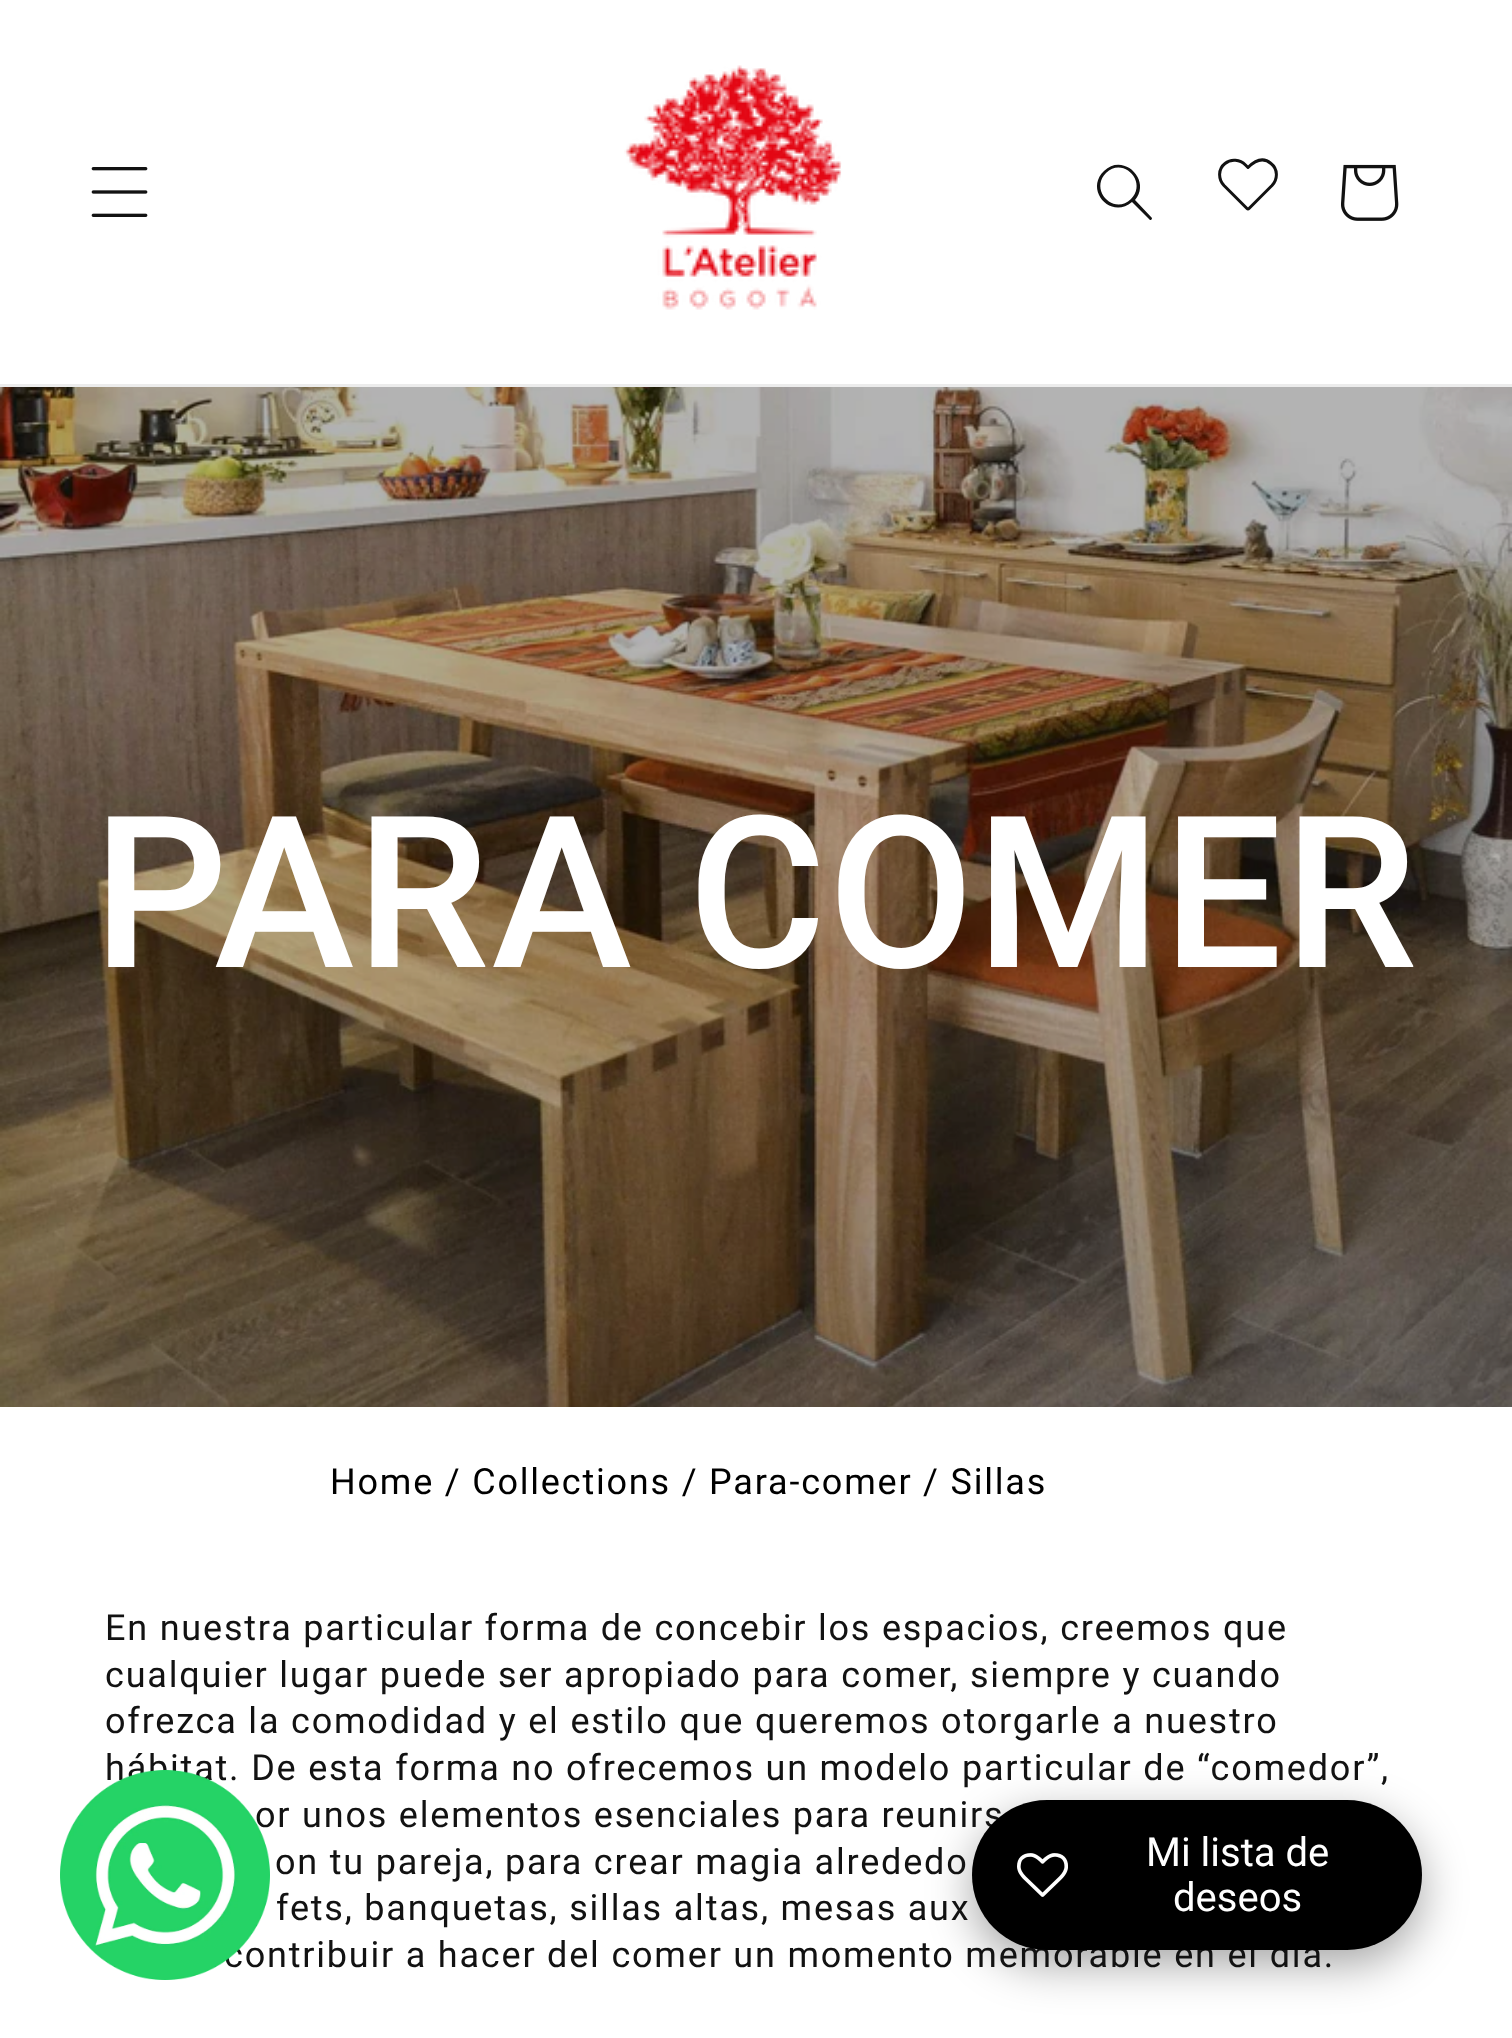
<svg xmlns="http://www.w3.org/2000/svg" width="1512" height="2038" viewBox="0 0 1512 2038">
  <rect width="100%" height="100%" fill="#fff"/>
  <path d="M0 384h1512v3H0z" fill="#ececec"/>
  <image x="91" y="167" width="57" height="50" href="img/1.png"/>
  <image x="624" y="65" width="218" height="245" href="img/2.png"/>
  <path d="M1131 199C1114 216 1089 190 1106 173C1123 156 1148 182 1131 199M1132 202C1111 220 1084 190 1104 171C1123 152 1152 180 1135 200L1152 218C1152 220 1150 221 1149 219Z" fill="#121212" fill-rule="evenodd"/>
  <path d="M1271 163.5C1263 156.5 1254.5 161 1248 167.5L1245.5 165C1240 159.5 1231 158.5 1225 163.5C1218 169 1218 179 1224 185.5L1247 208.5C1247.5 209 1248.5 209 1249 208.5L1272 185.5C1278 179 1278 169 1271 163.5Z" fill="none" stroke="#121212" stroke-width="3" stroke-linecap="round" stroke-linejoin="round"/>
  <image x="1341" y="164" width="58" height="57" href="img/3.png"/>
  <image x="0" y="387" width="1512" height="1020" href="img/4.png"/>
  <rect x="972" y="1815" width="450" height="150" rx="75" fill="#00000059" filter="blur(22.5px)"/>
  <text x="93" y="967" font-family="Roboto" font-size="211.75" font-weight="500" letter-spacing="1.8" fill="#fff">PARA COMER</text>
  <text x="330" y="1494" font-family="Roboto" font-size="36" letter-spacing="1.8" fill="#000">Home / Collections / Para-comer / Sillas</text>
  <g font-family="Roboto" font-size="36" letter-spacing="1.8" fill="#121212">
    <text x="105" y="1640">En nuestra particular forma de concebir los espacios, creemos que</text>
    <text x="105" y="1687">cualquier lugar puede ser apropiado para comer, siempre y cuando</text>
    <text x="105" y="1733">ofrezca la comodidad y el estilo que queremos otorgarle a nuestro</text>
    <text x="105" y="1780">hábitat. De esta forma no ofrecemos un modelo particular de “comedor”,</text>
    <text x="255" y="1827">or unos elementos esenciales para reunirs</text>
    <text x="275" y="1874">on tu pareja, para crear magia alrededo</text>
    <text x="276" y="1920">fets, banquetas, sillas altas, mesas aux</text>
    <text x="224" y="1967">contribuir a hacer del comer un momento memorable en el día.</text>
  </g>
  <image x="60" y="1770" width="210" height="210" href="img/5.png"/>
  <rect x="972" y="1800" width="450" height="150" rx="75" fill="#000"/>
  <image x="1017" y="1853" width="51" height="44" href="img/6.png"/>
  <g font-family="Roboto" font-size="40" fill="#fff">
    <text x="1146" y="1866">Mi lista de</text>
    <text x="1173" y="1911">deseos</text>
  </g>
</svg>
